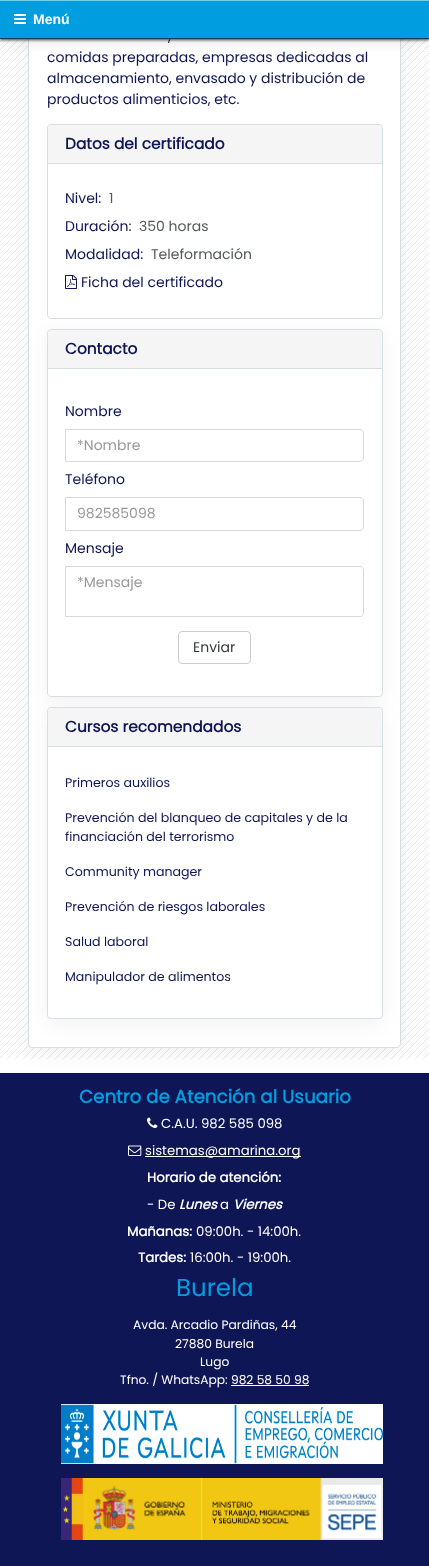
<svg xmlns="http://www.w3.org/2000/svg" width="429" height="1566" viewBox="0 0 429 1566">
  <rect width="100%" height="100%" fill="#fff"/>
  <image x="0" y="39" width="429" height="1020" href="img/2.png"/>
  <path d="M0 1073h429v493H0z" fill="#0e1655"/>
  <rect x="28" y="-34" width="373" height="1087" rx="4" fill="#0000000d" filter="blur(10px)"/>
  <rect x="28.5" y="-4.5" width="372" height="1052" rx="3.5" fill="#fff" stroke="#d7dfe3"/>
  <path d="M0 0h429v39H0z" fill="#00000021" filter="blur(9px)"/>
  <path d="M0 1h429v39H0z" fill="#000000ba" filter="blur(1.5px)"/>
  <path d="M0 1h429v37H0z" fill="#009ee0"/>
  <path d="M0 0h429v1H0z" fill="#6ad2ef"/>
  <path d="M0 38h429v1H0z" fill="#103c56"/>
  <image x="14" y="14" width="12" height="10" href="img/1.png"/>
  <rect x="47.5" y="124.5" width="335" height="194" rx="3.5" fill="none" stroke="#d7dfe3"/>
  <path d="M52 125H378C380 125 382 127 382 129V164H48V129C48 127 50 125 52 125Z" fill="#f5f5f5"/>
  <path d="M48 163h334v1H48z" fill="#d7dfe3"/>
  <image x="65" y="275" width="12" height="14" href="img/3.png"/>
  <rect x="47" y="334" width="336" height="368" rx="4" fill="#0000000d" filter="blur(10px)"/>
  <rect x="47.5" y="329.5" width="335" height="367" rx="3.5" fill="#fff" stroke="#d7dfe3"/>
  <path d="M52 330H378C380 330 382 332 382 334V369H48V334C48 332 50 330 52 330Z" fill="#f5f5f5"/>
  <path d="M48 368h334v1H48z" fill="#d7dfe3"/>
  <path d="M65.5 429.5H360C362 429.5 363.5 431 363.5 433V458C363.5 460 362 461.5 360 461.5H65.5Z" fill="none" stroke="#d9d9d9"/>
  <path d="M65.5 497.5H360C362 497.5 363.5 499 363.5 501V527C363.5 529 362 530.5 360 530.5H65.5Z" fill="none" stroke="#d9d9d9"/>
  <path d="M65.5 566.5H360C362 566.5 363.5 568 363.5 570V613C363.5 615 362 616.5 360 616.5H65.5Z" fill="none" stroke="#d9d9d9"/>
  <rect x="178.5" y="631.5" width="72" height="32" rx="3.5" fill="none" stroke="#ccc"/>
  <rect x="47" y="712" width="336" height="312" rx="4" fill="#0000000d" filter="blur(10px)"/>
  <rect x="47.5" y="707.5" width="335" height="311" rx="3.5" fill="#fff" stroke="#d7dfe3"/>
  <path d="M52 708H378C380 708 382 710 382 712V747H48V712C48 710 50 708 52 708Z" fill="#f5f5f5"/>
  <path d="M48 746h334v1H48z" fill="#d7dfe3"/>
  <image x="147" y="1117" width="11" height="11" href="img/4.png"/>
  <image x="128" y="1145" width="14" height="11" href="img/5.png"/>
  <path d="M145 1156h156v1H145z" fill="#fff"/>
  <path d="M231 1385h78v1H231z" fill="#fff"/>
  <image x="61" y="1404" width="322" height="60" href="img/6.png"/>
  <image x="61" y="1478" width="322" height="62" href="img/7.png"/>
  <text x="33" y="24" font-family="Liberation Sans" font-size="14" font-weight="bold" fill="#fff">Menú</text>
  <g font-family="Poppins" font-size="14" fill="#0e1655">
    <text x="168" y="41">,</text>
    <text x="47" y="62">comidas preparadas, empresas dedicadas al</text>
    <text x="47" y="83">almacenamiento, envasado y distribución de</text>
    <text x="47" y="104">productos alimenticios, etc.</text>
  </g>
  <text x="65" y="149" font-family="Poppins" font-size="15.4" font-weight="bold" fill="#0e1655">Datos del certificado</text>
  <text x="65" y="203" font-family="Poppins" font-size="14" fill="#0e1655">Nivel:</text>
  <text x="109" y="203" font-family="Poppins" font-size="14" fill="#55595c">1</text>
  <text x="65" y="231" font-family="Poppins" font-size="14" fill="#0e1655">Duración:</text>
  <text x="139" y="231" font-family="Poppins" font-size="14" fill="#55595c">350 horas</text>
  <text x="65" y="259" font-family="Poppins" font-size="14" fill="#0e1655">Modalidad:</text>
  <text x="151" y="259" font-family="Poppins" font-size="14" fill="#55595c">Teleformación</text>
  <text x="81" y="287" font-family="Poppins" font-size="14" fill="#0e1655">Ficha del certificado</text>
  <text x="65" y="354" font-family="Poppins" font-size="15.4" font-weight="bold" fill="#0e1655">Contacto</text>
  <text x="65" y="416" font-family="Poppins" font-size="14" fill="#0e1655">Nombre</text>
  <text x="77" y="450" font-family="Poppins" font-size="14" fill="#999">*Nombre</text>
  <text x="65" y="484" font-family="Poppins" font-size="14" fill="#0e1655">Teléfono</text>
  <text x="77" y="518" font-family="Poppins" font-size="14" fill="#999">982585098</text>
  <text x="65" y="553" font-family="Poppins" font-size="14" fill="#0e1655">Mensaje</text>
  <text x="77" y="587" font-family="Poppins" font-size="14" fill="#999">*Mensaje</text>
  <text x="193" y="652" font-family="Poppins" font-size="14" fill="#373a3c">Enviar</text>
  <text x="65" y="732" font-family="Poppins" font-size="15.4" font-weight="bold" fill="#0e1655">Cursos recomendados</text>
  <g font-family="Poppins" font-size="12.6" fill="#0e1655">
    <text x="65" y="787">Primeros auxilios</text>
    <text x="65" y="822">Prevención del blanqueo de capitales y de la</text>
    <text x="65" y="841">financiación del terrorismo</text>
    <text x="65" y="876">Community manager</text>
    <text x="65" y="911">Prevención de riesgos laborales</text>
    <text x="65" y="946">Salud laboral</text>
    <text x="65" y="981">Manipulador de alimentos</text>
  </g>
  <text x="79" y="1103" font-family="Poppins" font-size="18.25" font-weight="bold" fill="#009ee0">Centro de Atención al Usuario</text>
  <g font-family="Poppins" font-size="13.25" fill="#fff">
    <text x="161" y="1128">C.A.U. 982 585 098</text>
    <text x="145" y="1155">sistemas@amarina.org</text>
  </g>
  <text x="147" y="1182" font-family="Poppins" font-size="13.25" font-weight="bold" fill="#fff">Horario de atención:</text>
  <text x="147" y="1209" font-family="Poppins" font-size="13.25" fill="#fff">- De</text>
  <text x="179" y="1209" font-family="Poppins" font-size="13.25" font-weight="bold" font-style="italic" fill="#fff">Lunes</text>
  <text x="220" y="1209" font-family="Poppins" font-size="13.25" fill="#fff">a</text>
  <text x="233" y="1209" font-family="Poppins" font-size="13.25" font-weight="bold" font-style="italic" fill="#fff">Viernes</text>
  <text x="127" y="1236" font-family="Poppins" font-size="13.25" font-weight="bold" fill="#fff">Mañanas:</text>
  <text x="196" y="1236" font-family="Poppins" font-size="13.25" fill="#fff">09:00h. - 14:00h.</text>
  <text x="138" y="1262" font-family="Poppins" font-size="13.25" font-weight="bold" fill="#fff">Tardes:</text>
  <text x="190" y="1262" font-family="Poppins" font-size="13.25" fill="#fff">16:00h. - 19:00h.</text>
  <text x="176" y="1296" font-family="Poppins" font-size="24.5" fill="#009ee0">Burela</text>
  <g font-family="Poppins" font-size="12.25" fill="#fff">
    <text x="133" y="1329">Avda. Arcadio Pardiñas, 44</text>
    <text x="175" y="1348">27880 Burela</text>
    <text x="200" y="1366">Lugo</text>
    <text x="120" y="1384">Tfno. / WhatsApp: 982 58 50 98</text>
  </g>
</svg>
